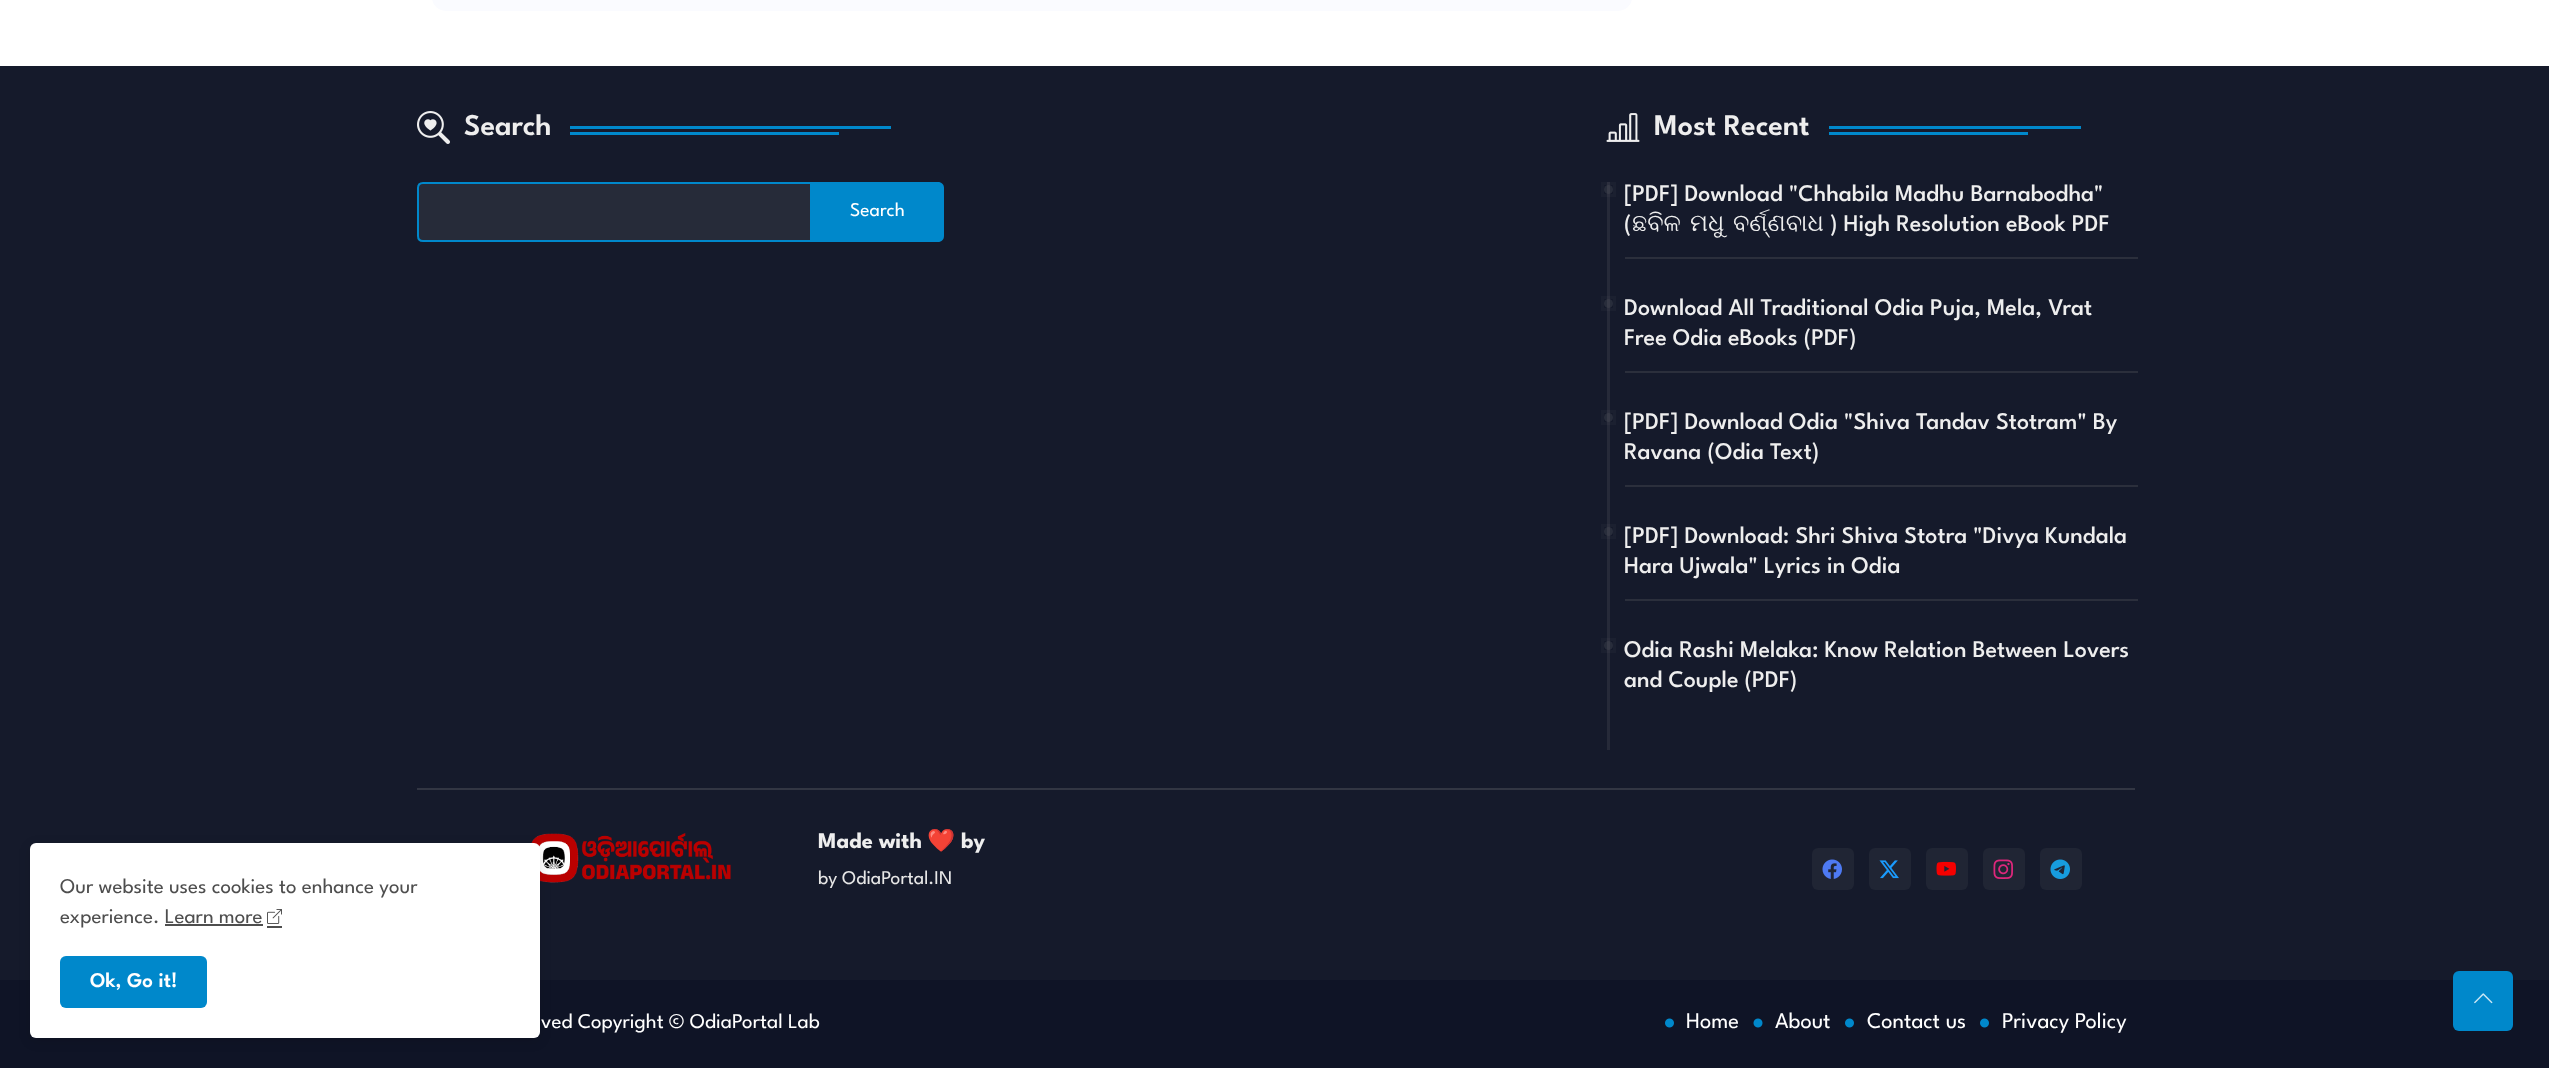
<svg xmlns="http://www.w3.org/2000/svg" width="2549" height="1068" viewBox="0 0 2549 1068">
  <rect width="100%" height="100%" fill="#fff"/>
  <rect x="432" y="-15" width="1200" height="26" rx="15" fill="#fafbff"/>
  <path d="M0 66h2549v914H0z" fill="#151a2b"/>
  <image x="531" y="833" width="200" height="50" href="img/4.png"/>
  <path d="M0 980h2549v88H0z" fill="#0f1426"/>
  <rect x="30" y="846" width="510" height="195" rx="6" fill="#0000001c" filter="blur(6px)"/>
  <rect x="30" y="843" width="510" height="195" rx="6" fill="#fff"/>
  <image x="267" y="909" width="15" height="15" href="img/1.png"/>
  <path d="M165 924h98v2H165z" fill="#4e4e4e"/>
  <path d="M267 926h15v2H267z" fill="#4e4e4e"/>
  <rect x="60" y="956" width="147" height="52" rx="6" fill="#0088cb"/>
  <image x="417" y="111" width="33" height="33" href="img/2.png"/>
  <path d="M570 126h321v3H570z" fill="#0088cb"/>
  <path d="M570 132h269v3H570z" fill="#0088cb"/>
  <path d="M423 183H811V241H423C420 241 418 239 418 236V188C418 185 420 183 423 183Z" fill="#262b39" stroke="#0088cb" stroke-width="2"/>
  <path d="M812 182H938C941.5 182 944 184.5 944 188V236C944 239.5 941.5 242 938 242H812Z" fill="#0088cb"/>
  <image x="1606" y="113" width="34" height="29" href="img/3.png"/>
  <path d="M1829 126h252v3H1829z" fill="#0088cb"/>
  <path d="M1829 132h199v3H1829z" fill="#0088cb"/>
  <path d="M1607 182h3v568H1607z" fill="#262a39"/>
  <path d="M1625 257h513v2H1625z" fill="#2b2f3c"/>
  <circle cx="1608.5" cy="189.5" r="4.5" fill="#9b9b9b26"/>
  <path d="M1602.5 183.5h12v12H1602.5z" fill="none" stroke="#9b9b9b0d" stroke-width="3"/>
  <path d="M1625 371h513v2H1625z" fill="#2b2f3c"/>
  <circle cx="1608.5" cy="303.5" r="4.5" fill="#9b9b9b26"/>
  <path d="M1602.5 297.5h12v12H1602.5z" fill="none" stroke="#9b9b9b0d" stroke-width="3"/>
  <path d="M1625 485h513v2H1625z" fill="#2b2f3c"/>
  <circle cx="1608.5" cy="417.5" r="4.5" fill="#9b9b9b26"/>
  <path d="M1602.5 411.5h12v12H1602.5z" fill="none" stroke="#9b9b9b0d" stroke-width="3"/>
  <path d="M1625 599h513v2H1625z" fill="#2b2f3c"/>
  <circle cx="1608.5" cy="531.5" r="4.5" fill="#9b9b9b26"/>
  <path d="M1602.5 525.5h12v12H1602.5z" fill="none" stroke="#9b9b9b0d" stroke-width="3"/>
  <circle cx="1608.5" cy="645.5" r="4.5" fill="#9b9b9b26"/>
  <path d="M1602.5 639.5h12v12H1602.5z" fill="none" stroke="#9b9b9b0d" stroke-width="3"/>
  <path d="M417 788h1718v2H417z" fill="#323643"/>
  <rect x="1812" y="848" width="42" height="42" rx="6" fill="#202534"/>
  <image x="1822" y="859" width="20" height="20" href="img/5.png"/>
  <rect x="1869" y="848" width="42" height="42" rx="6" fill="#202534"/>
  <image x="1879" y="860" width="20" height="19" href="img/6.png"/>
  <rect x="1926" y="848" width="42" height="42" rx="6" fill="#202534"/>
  <image x="1936" y="861" width="20" height="15" href="img/7.png"/>
  <rect x="1983" y="848" width="42" height="42" rx="6" fill="#202534"/>
  <image x="1993" y="859" width="20" height="20" href="img/8.png"/>
  <rect x="2040" y="848" width="42" height="42" rx="6" fill="#202534"/>
  <image x="2050" y="859" width="20" height="20" href="img/9.png"/>
  <image x="1665" y="1018" width="9" height="10" href="img/10.png"/>
  <image x="1753" y="1018" width="10" height="10" href="img/11.png"/>
  <image x="1845" y="1018" width="9" height="10" href="img/10.png"/>
  <image x="1980" y="1018" width="9" height="10" href="img/10.png"/>
  <rect x="2453" y="971" width="60" height="60" rx="6" fill="#0088cb"/>
  <image x="2474" y="993" width="19" height="11" href="img/12.png"/>
  <g font-family="League Spartan" font-size="21" fill="#4e4e4e">
    <text x="60" y="893">Our website uses cookies to enhance your</text>
    <text x="60" y="923">experience. Learn more</text>
  </g>
  <text x="90" y="987" font-family="League Spartan" font-size="21" font-weight="600" fill="#fff">Ok, Go it!</text>
  <text x="464" y="135" font-family="League Spartan" font-size="30" font-weight="600" fill="#eee">Search</text>
  <text x="850" y="216" font-family="League Spartan" font-size="19.5" fill="#fff">Search</text>
  <text x="1654" y="135" font-family="League Spartan" font-size="30" font-weight="600" fill="#eee">Most Recent</text>
  <g font-family="League Spartan" font-size="24" font-weight="500" fill="#eee">
    <text x="1624" y="201">[PDF] Download "Chhabila Madhu Barnabodha"</text>
    <text x="1624" y="231">(</text>
  </g>
  <text x="1632" y="231" font-family="FreeSerif" font-size="24" fill="#eee">ଛବିଳ</text>
  <text x="1690" y="231" font-family="FreeSerif" font-size="24" fill="#eee">ମଧୁ</text>
  <text x="1733" y="231" font-family="FreeSerif" font-size="24" fill="#eee">ବର୍ଣ୍ଣବୋଧ</text>
  <g font-family="League Spartan" font-size="24" font-weight="500" fill="#eee">
    <text x="1830" y="231">) High Resolution eBook PDF</text>
    <text x="1624" y="315">Download All Traditional Odia Puja, Mela, Vrat</text>
    <text x="1624" y="345">Free Odia eBooks (PDF)</text>
    <text x="1624" y="429">[PDF] Download Odia "Shiva Tandav Stotram" By</text>
    <text x="1624" y="459">Ravana (Odia Text)</text>
    <text x="1624" y="543">[PDF] Download: Shri Shiva Stotra "Divya Kundala</text>
    <text x="1624" y="573">Hara Ujwala" Lyrics in Odia</text>
    <text x="1624" y="657">Odia Rashi Melaka: Know Relation Between Lovers</text>
    <text x="1624" y="687">and Couple (PDF)</text>
  </g>
  <text x="818" y="848" font-family="League Spartan" font-size="22.5" font-weight="bold" fill="#eee">Made with</text>
  <text x="927" y="848" font-family="Noto Color Emoji" font-size="22.5" font-weight="bold" fill="#eee">❤️</text>
  <text x="961" y="848" font-family="League Spartan" font-size="22.5" font-weight="bold" fill="#eee">by</text>
  <text x="818" y="884" font-family="League Spartan" font-size="19.5" fill="#e7e7e7">by OdiaPortal.IN</text>
  <text x="541" y="1028" font-family="League Spartan" font-size="21" fill="#fff">ved Copyright © OdiaPortal Lab</text>
  <g font-family="League Spartan" font-size="22.5" fill="#fff">
    <text x="1686" y="1028">Home</text>
    <text x="1775" y="1028">About</text>
    <text x="1867" y="1028">Contact us</text>
    <text x="2002" y="1028">Privacy Policy</text>
  </g>
</svg>
